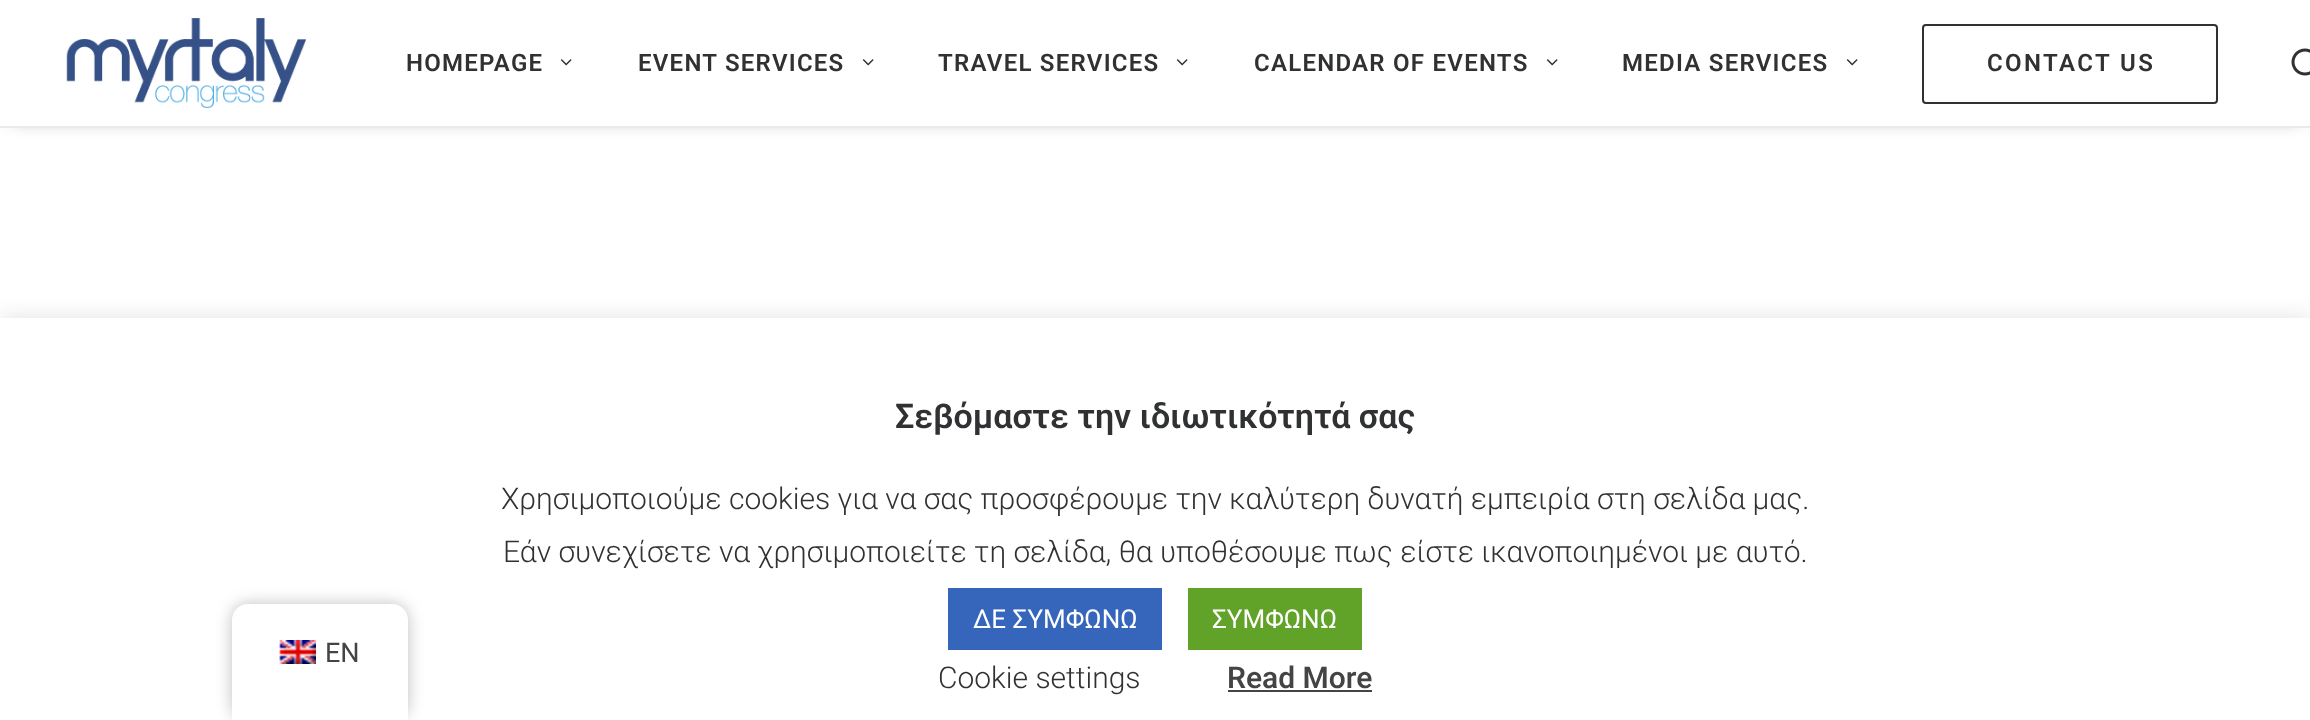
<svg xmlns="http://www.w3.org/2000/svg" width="2310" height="720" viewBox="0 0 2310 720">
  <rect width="100%" height="100%" fill="#fff"/>
  <path d="M12 28h2288v88H12z" fill="#00000099" filter="blur(10px)"/>
  <path d="M0 7h2310v119H0z" fill="#fff"/>
  <path d="M0 126h2310v2H0z" fill="#eaeaea"/>
  <image x="66" y="18" width="240" height="90" href="img/1.png"/>
  <image x="560" y="59" width="12" height="7" href="img/2.png"/>
  <image x="862" y="59" width="12" height="7" href="img/2.png"/>
  <image x="1176" y="59" width="12" height="7" href="img/2.png"/>
  <image x="1546" y="59" width="12" height="7" href="img/2.png"/>
  <image x="1846" y="59" width="12" height="7" href="img/2.png"/>
  <rect x="1923" y="25" width="294" height="78" rx="3" fill="none" stroke="#303133" stroke-width="2"/>
  <image x="2291" y="48" width="19" height="28" href="img/3.png"/>
  <path d="M0 316h2310v402H0z" fill="#acabab4d" filter="blur(10px)"/>
  <path d="M0 318h2310v402H0z" fill="#fff"/>
  <rect x="232" y="604" width="176" height="116" rx="16" fill="#00000040" filter="blur(8px)"/>
  <path d="M248 604H392C401 604 408 611 408 620V720H232V620C232 611 239 604 248 604Z" fill="#fff"/>
  <image x="279" y="640" width="37" height="24" href="img/4.png"/>
  <path d="M948 588h214v62H948z" fill="#3566bb"/>
  <path d="M1188 588h174v62H1188z" fill="#61a229"/>
  <path d="M1228 690h144v2H1228z" fill="#444"/>
  <g font-family="Roboto" font-size="24" font-weight="600" letter-spacing="1.25" fill="#303133">
    <text x="406" y="71">HOMEPAGE</text>
    <text x="638" y="71">EVENT SERVICES</text>
    <text x="938" y="71">TRAVEL SERVICES</text>
    <text x="1254" y="71">CALENDAR OF EVENTS</text>
    <text x="1622" y="71">MEDIA SERVICES</text>
  </g>
  <text x="1987" y="71" font-family="Roboto" font-size="24" font-weight="600" letter-spacing="2.4" fill="#303133">CONTACT US</text>
  <text x="325" y="662" font-family="Roboto" font-size="27" fill="#444">EN</text>
  <text x="895" y="428" font-family="Roboto" font-size="34" font-weight="600" fill="#303133">Σεβόμαστε την ιδιωτικότητά σας</text>
  <g font-family="Roboto" font-size="30" font-weight="300" fill="#303133">
    <text x="501" y="509">Χρησιμοποιούμε cookies για να σας προσφέρουμε την καλύτερη δυνατή εμπειρία στη σελίδα μας.</text>
    <text x="503" y="562">Εάν συνεχίσετε να χρησιμοποιείτε τη σελίδα, θα υποθέσουμε πως είστε ικανοποιημένοι με αυτό.</text>
  </g>
  <g font-family="Roboto" font-size="26" fill="#fff">
    <text x="973" y="628">ΔΕ ΣΥΜΦΩΝΩ</text>
    <text x="1212" y="628">ΣΥΜΦΩΝΩ</text>
  </g>
  <text x="938" y="688" font-family="Roboto" font-size="30" font-weight="300" fill="#303133">Cookie settings</text>
  <text x="1227" y="688" font-family="Roboto" font-size="30" font-weight="500" fill="#444">Read More</text>
</svg>
